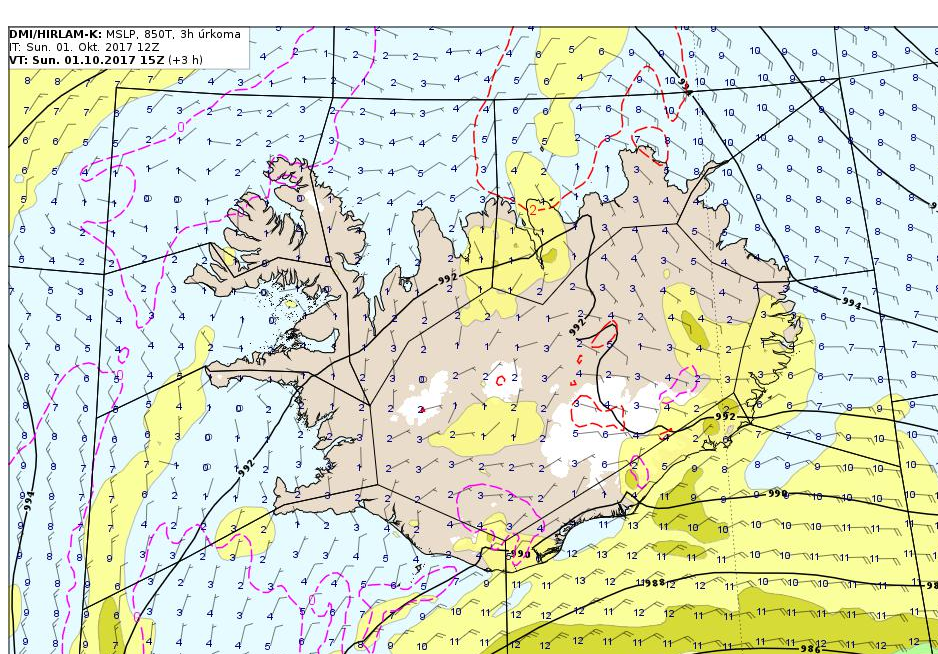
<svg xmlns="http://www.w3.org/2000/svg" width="938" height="654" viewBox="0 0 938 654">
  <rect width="100%" height="100%" fill="#fff"/>
  <image x="8" y="26" width="930" height="628" href="img/1.png"/>
</svg>
